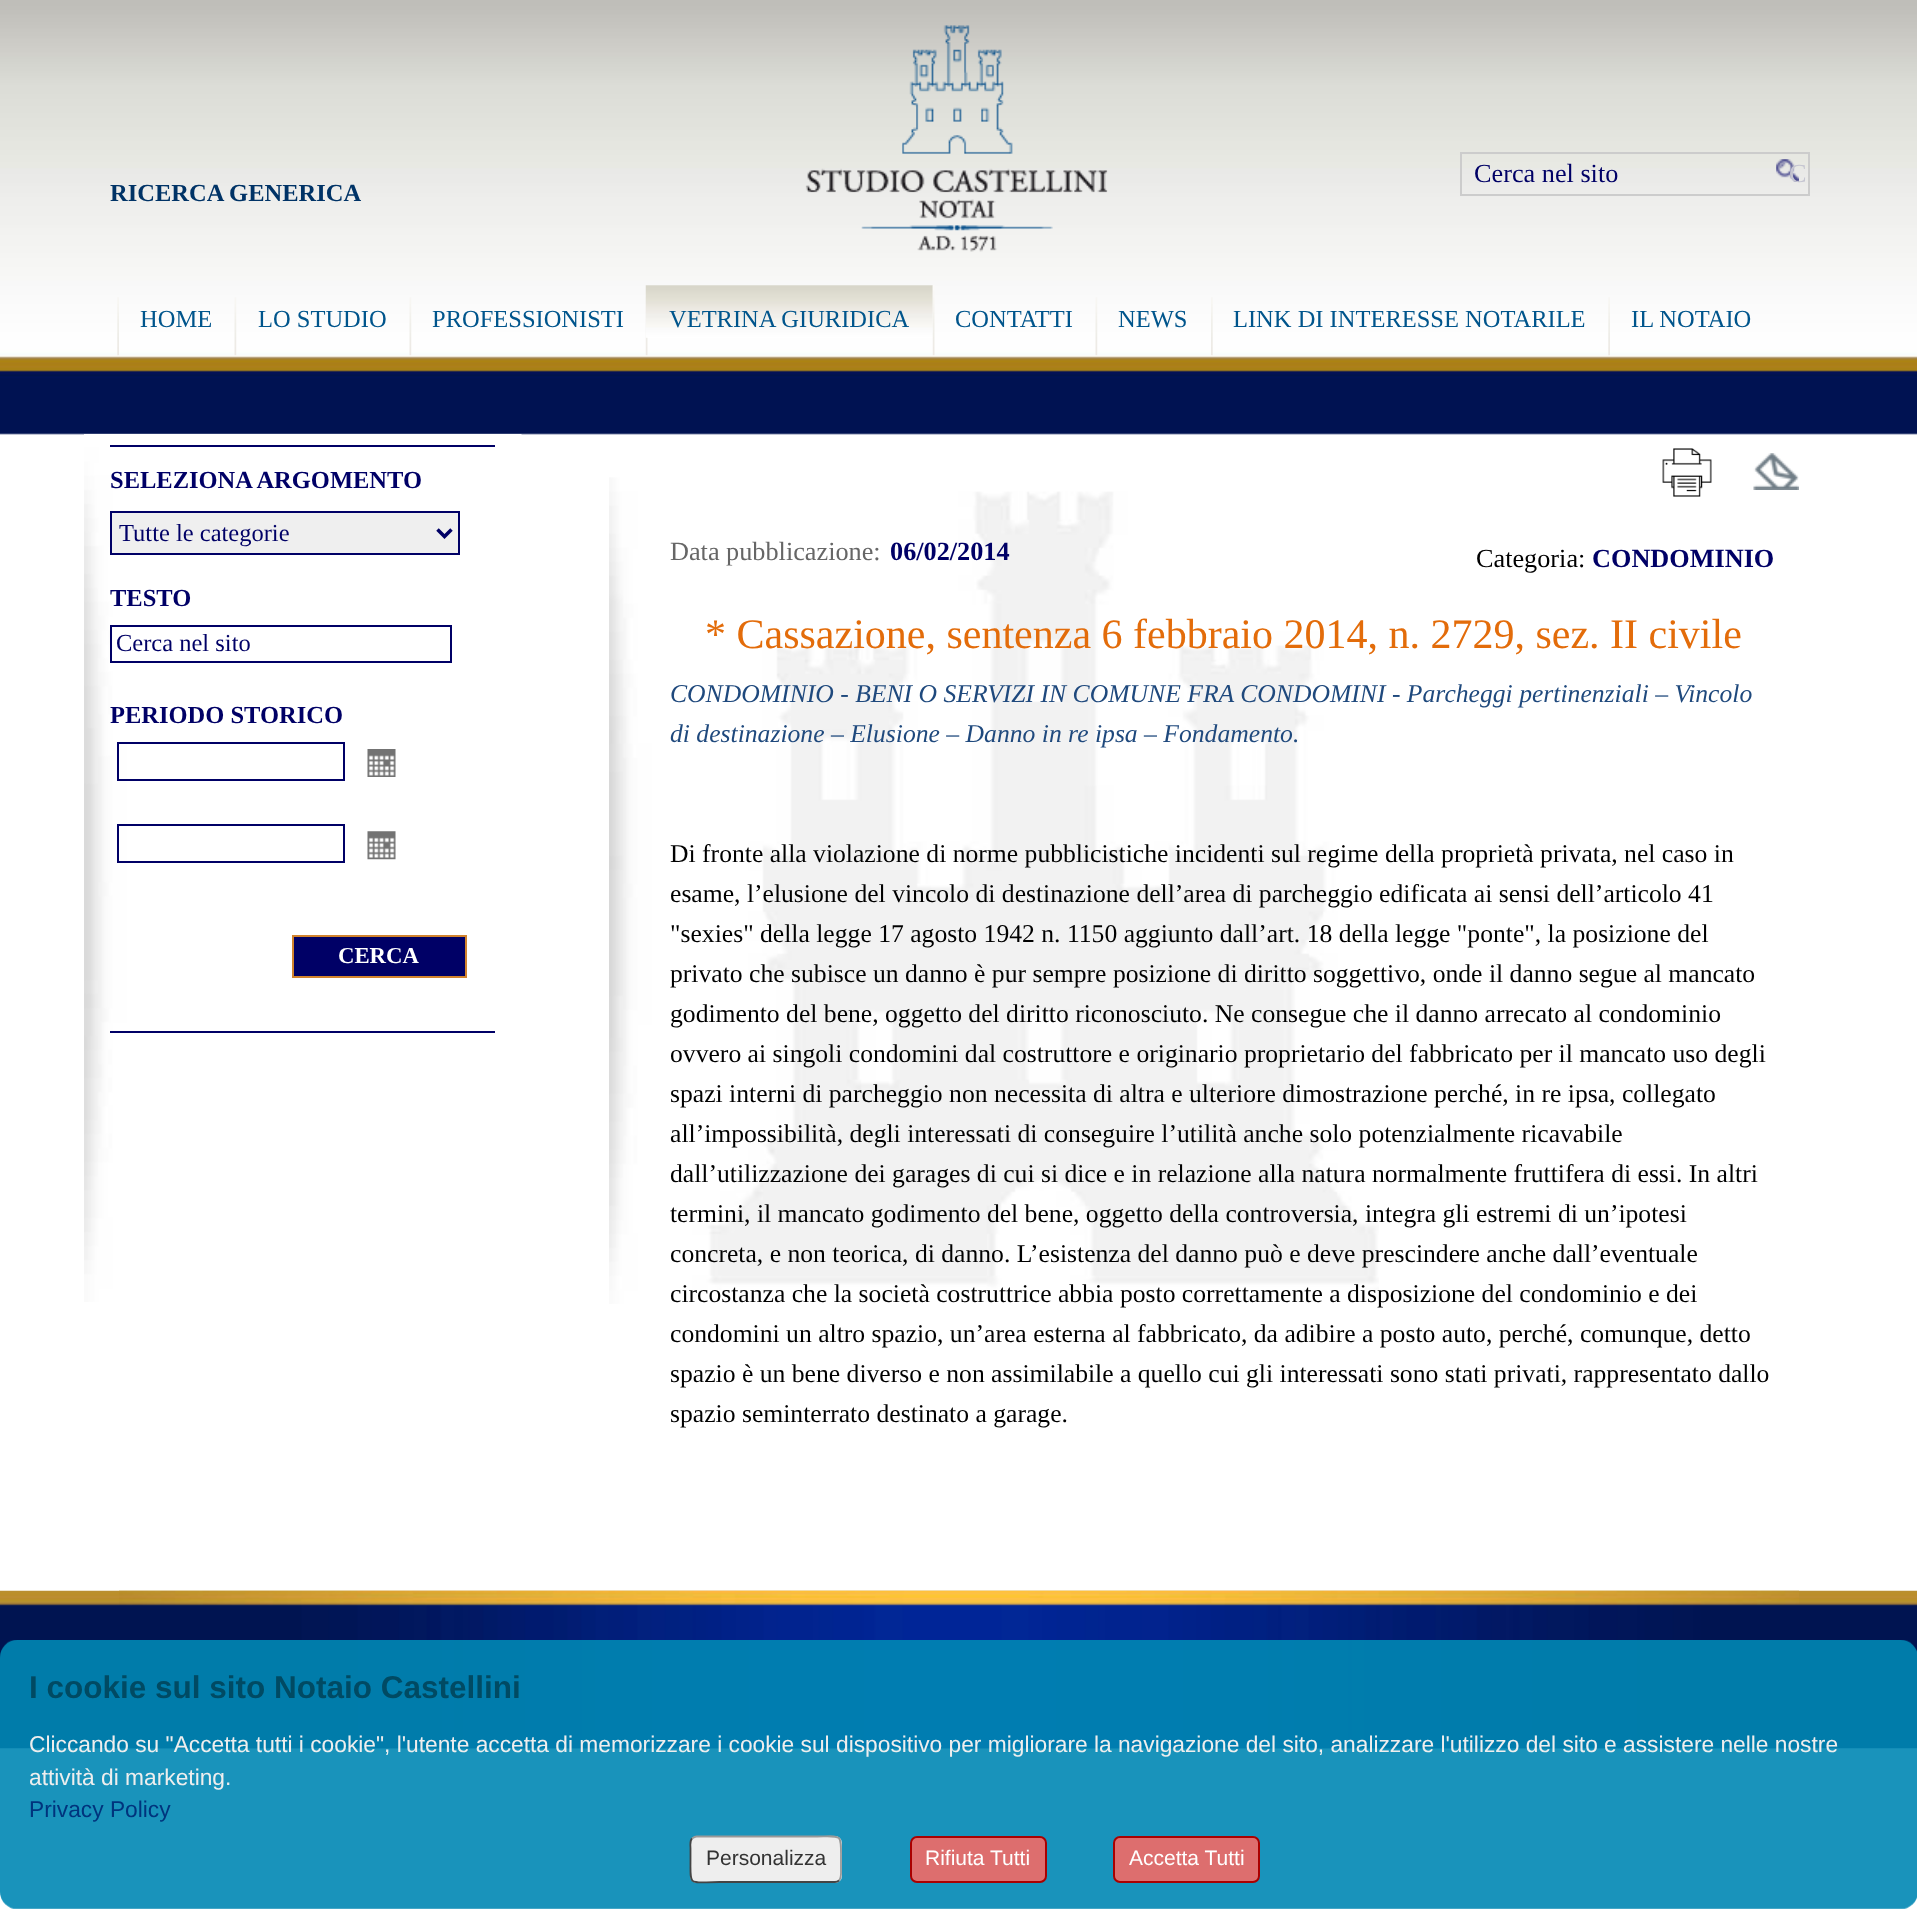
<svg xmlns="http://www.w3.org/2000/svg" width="1917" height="1909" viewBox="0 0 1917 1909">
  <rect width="100%" height="100%" fill="#fff"/>
  <image x="0" y="0" width="1917" height="435" href="img/1.png"/>
  <image x="805" y="25" width="303" height="227" href="img/2.png"/>
  <path d="M1461 153h348v42H1461z" fill="none" stroke="#ccc" stroke-width="2"/>
  <image x="1776" y="159" width="23" height="23" href="img/3.png"/>
  <image x="117" y="297" width="2" height="59" href="img/4.png"/>
  <image x="234" y="297" width="3" height="59" href="img/5.png"/>
  <image x="409" y="297" width="3" height="59" href="img/5.png"/>
  <image x="645" y="297" width="3" height="59" href="img/6.png"/>
  <image x="645" y="285" width="288" height="53" href="img/7.png"/>
  <image x="932" y="285" width="3" height="71" href="img/8.png"/>
  <image x="1095" y="297" width="3" height="59" href="img/5.png"/>
  <image x="1211" y="297" width="2" height="59" href="img/9.png"/>
  <image x="1608" y="297" width="2" height="59" href="img/4.png"/>
  <image x="84" y="434" width="438" height="868" href="img/10.png"/>
  <path d="M110 445h385v2H110z" fill="#006"/>
  <path d="M110 1031h385v2H110z" fill="#006"/>
  <path d="M111 512h348v42H111z" fill="#efefef" stroke="#006" stroke-width="2"/>
  <path d="M437.5 529.5L444.5 536.5L451.5 529.5" fill="none" stroke="#006" stroke-width="3.5"/>
  <path d="M111 626h340v36H111z" fill="none" stroke="#006" stroke-width="2"/>
  <path d="M118 743h226v37H118z" fill="none" stroke="#006" stroke-width="2"/>
  <image x="367" y="749" width="29" height="28" href="img/11.png"/>
  <path d="M118 825h226v37H118z" fill="none" stroke="#006" stroke-width="2"/>
  <image x="367" y="831" width="29" height="29" href="img/12.png"/>
  <path d="M293 936h173v41H293z" fill="#006" stroke="#d2832d" stroke-width="2"/>
  <image x="609" y="477" width="770" height="827" href="img/13.png"/>
  <image x="1662" y="448" width="50" height="49" href="img/14.png"/>
  <image x="1753" y="453" width="46" height="37" href="img/15.png"/>
  <image x="0" y="1590" width="1917" height="159" href="img/16.png"/>
  <image x="119" y="1590" width="1680" height="159" href="img/17.png"/>
  <image x="0" y="1640" width="1917" height="269" href="img/18.png"/>
  <rect x="690" y="1836" width="152" height="47" rx="7" fill="#eee"/>
  <path d="M692 1838.5C693.5 1837.5 695 1836.5 696.5 1836.5H811.5C843 1836.5 841 1831.5 841 1859.5V1870.5C841 1873.5 841.5 1878 839 1880.5" fill="none" stroke="#999" stroke-width="1.8"/>
  <path d="M839 1880.5C838 1881.5 836.5 1882 835 1882H719.5C688 1882 690.5 1887.5 690.5 1859.5V1848.5C690.5 1845 689.5 1841 692 1838.5" fill="none" stroke="#444" stroke-width="1.8"/>
  <rect x="911" y="1837" width="135" height="45" rx="6" fill="#dd6e6e" stroke="#a00" stroke-width="2"/>
  <rect x="1114" y="1837" width="145" height="45" rx="6" fill="#dd6e6e" stroke="#a00" stroke-width="2"/>
  <text x="1474" y="182" font-family="Liberation Serif" font-size="26.25" fill="#006">Cerca nel sito</text>
  <text x="1789" y="182" font-family="Liberation Serif" font-size="26.25" fill="#c5c5d1">C</text>
  <text x="110" y="201" font-family="Liberation Serif" font-size="24.5" font-weight="bold" fill="#036">RICERCA GENERICA</text>
  <g font-family="Liberation Serif" font-size="24.5" fill="#00558c">
    <text x="140" y="327">HOME</text>
    <text x="258" y="327">LO STUDIO</text>
    <text x="432" y="327">PROFESSIONISTI</text>
    <text x="669" y="327">VETRINA GIURIDICA</text>
    <text x="955" y="327">CONTATTI</text>
    <text x="1118" y="327">NEWS</text>
    <text x="1233" y="327">LINK DI INTERESSE NOTARILE</text>
    <text x="1631" y="327">IL NOTAIO</text>
  </g>
  <text x="110" y="488" font-family="Liberation Serif" font-size="24.5" font-weight="bold" fill="#006">SELEZIONA ARGOMENTO</text>
  <text x="119" y="541" font-family="Liberation Serif" font-size="24.5" fill="#006">Tutte le categorie</text>
  <text x="110" y="606" font-family="Liberation Serif" font-size="24.5" font-weight="bold" fill="#006">TESTO</text>
  <text x="116" y="651" font-family="Liberation Serif" font-size="24.5" fill="#006">Cerca nel sito</text>
  <text x="110" y="723" font-family="Liberation Serif" font-size="24.5" font-weight="bold" fill="#006">PERIODO STORICO</text>
  <text x="338" y="963" font-family="Liberation Serif" font-size="22.75" font-weight="bold" fill="#fff">CERCA</text>
  <text x="670" y="560" font-family="Liberation Serif" font-size="26.25" fill="#666">Data pubblicazione:</text>
  <text x="890" y="560" font-family="Liberation Serif" font-size="26.25" font-weight="bold" fill="#006">06/02/2014</text>
  <text x="1476" y="567" font-family="Liberation Serif" font-size="26.25" fill="#000">Categoria:</text>
  <text x="1592" y="567" font-family="Liberation Serif" font-size="26.25" font-weight="bold" fill="#006">CONDOMINIO</text>
  <text x="705" y="648" font-family="Liberation Serif" font-size="42" fill="#e36c0a">* Cassazione, sentenza 6 febbraio 2014, n. 2729, sez. II civile</text>
  <g font-family="Liberation Serif" font-size="25.65" font-style="italic" fill="#1f497d">
    <text x="670" y="702">CONDOMINIO - BENI O SERVIZI IN COMUNE FRA CONDOMINI - Parcheggi pertinenziali – Vincolo</text>
    <text x="670" y="742">di destinazione – Elusione – Danno in re ipsa – Fondamento.</text>
  </g>
  <g font-family="Liberation Serif" font-size="25.65" fill="#000">
    <text x="670" y="862">Di fronte alla violazione di norme pubblicistiche incidenti sul regime della proprietà privata, nel caso in</text>
    <text x="670" y="902">esame, l’elusione del vincolo di destinazione dell’area di parcheggio edificata ai sensi dell’articolo 41</text>
    <text x="670" y="942">"sexies" della legge 17 agosto 1942 n. 1150 aggiunto dall’art. 18 della legge "ponte", la posizione del</text>
    <text x="670" y="982">privato che subisce un danno è pur sempre posizione di diritto soggettivo, onde il danno segue al mancato</text>
    <text x="670" y="1022">godimento del bene, oggetto del diritto riconosciuto. Ne consegue che il danno arrecato al condominio</text>
    <text x="670" y="1062">ovvero ai singoli condomini dal costruttore e originario proprietario del fabbricato per il mancato uso degli</text>
    <text x="670" y="1102">spazi interni di parcheggio non necessita di altra e ulteriore dimostrazione perché, in re ipsa, collegato</text>
    <text x="670" y="1142">all’impossibilità, degli interessati di conseguire l’utilità anche solo potenzialmente ricavabile</text>
    <text x="670" y="1182">dall’utilizzazione dei garages di cui si dice e in relazione alla natura normalmente fruttifera di essi. In altri</text>
    <text x="670" y="1222">termini, il mancato godimento del bene, oggetto della controversia, integra gli estremi di un’ipotesi</text>
    <text x="670" y="1262">concreta, e non teorica, di danno. L’esistenza del danno può e deve prescindere anche dall’eventuale</text>
    <text x="670" y="1302">circostanza che la società costruttrice abbia posto correttamente a disposizione del condominio e dei</text>
    <text x="670" y="1342">condomini un altro spazio, un’area esterna al fabbricato, da adibire a posto auto, perché, comunque, detto</text>
    <text x="670" y="1382">spazio è un bene diverso e non assimilabile a quello cui gli interessati sono stati privati, rappresentato dallo</text>
    <text x="670" y="1422">spazio seminterrato destinato a garage.</text>
  </g>
  <text x="29" y="1698" font-family="Liberation Sans" font-size="31.5" font-weight="bold" fill="#004a63">I cookie sul sito Notaio Castellini</text>
  <g font-family="Liberation Sans" font-size="22.75" fill="#eee">
    <text x="29" y="1752">Cliccando su "Accetta tutti i cookie", l'utente accetta di memorizzare i cookie sul dispositivo per migliorare la navigazione del sito, analizzare l'utilizzo del sito e assistere nelle nostre</text>
    <text x="29" y="1785">attività di marketing.</text>
  </g>
  <text x="29" y="1817" font-family="Liberation Sans" font-size="22.75" fill="#00347d">Privacy Policy</text>
  <text x="706" y="1865" font-family="Liberation Sans" font-size="21" fill="#333">Personalizza</text>
  <g font-family="Liberation Sans" font-size="21" fill="#fff">
    <text x="925" y="1865">Rifiuta Tutti</text>
    <text x="1129" y="1865">Accetta Tutti</text>
  </g>
</svg>
